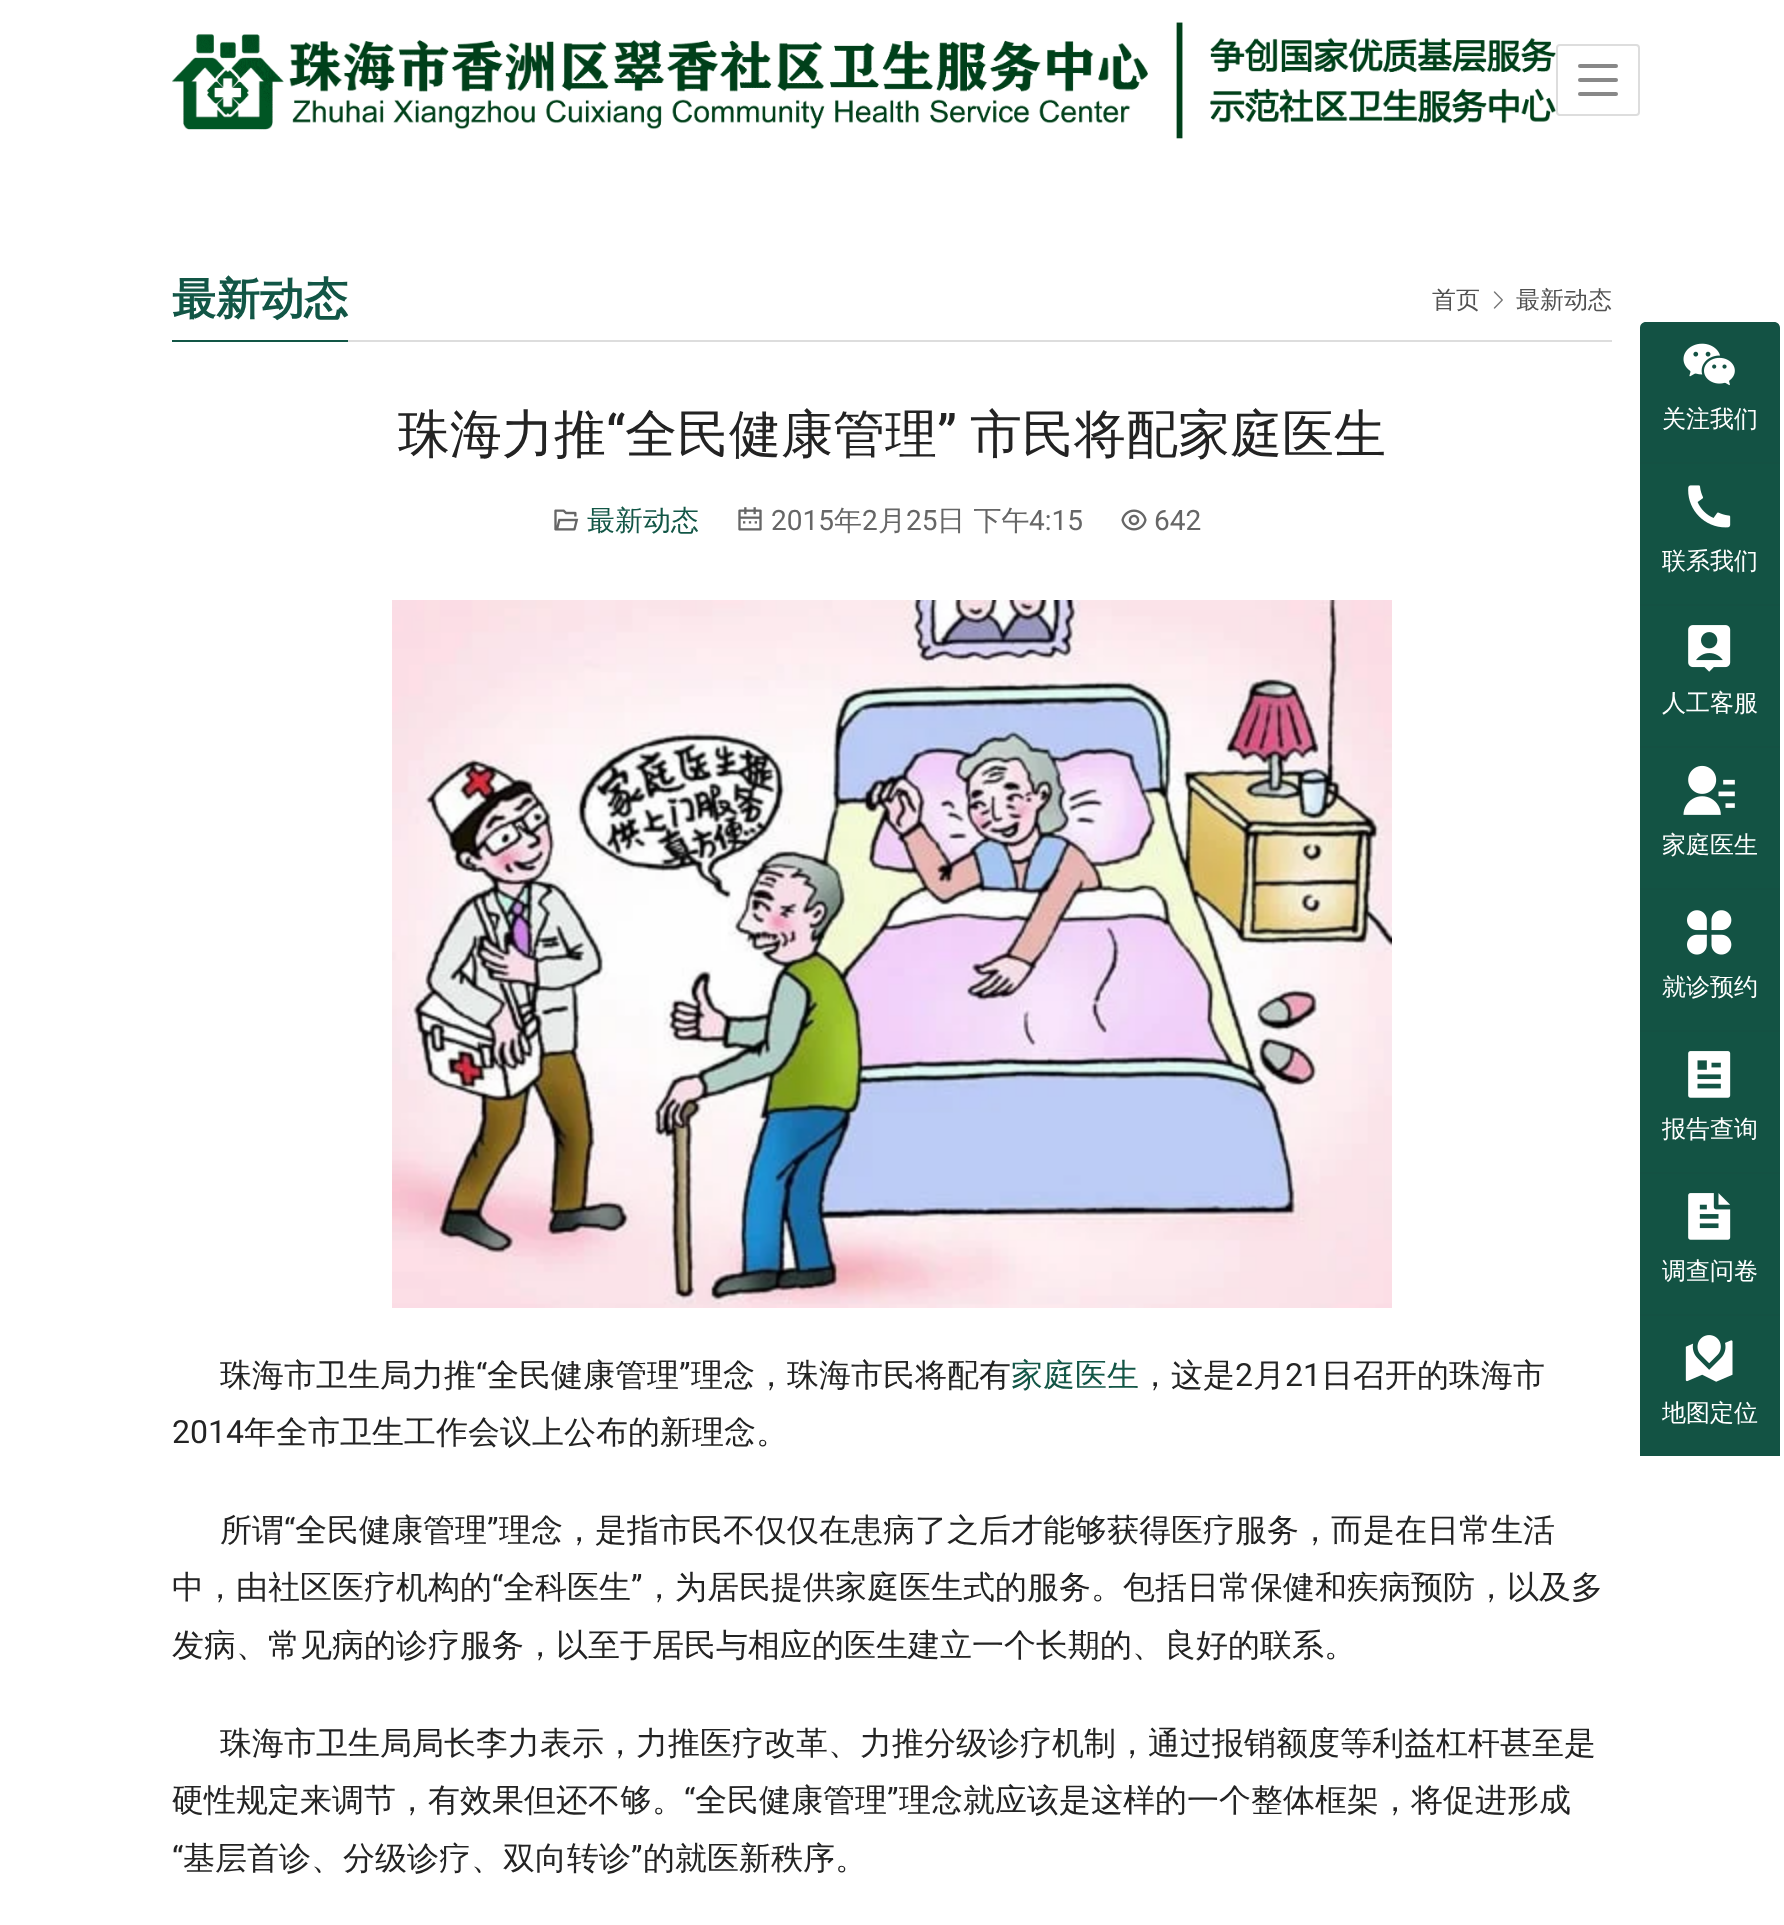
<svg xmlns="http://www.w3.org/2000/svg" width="1784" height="1925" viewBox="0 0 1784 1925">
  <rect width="100%" height="100%" fill="#fff"/>
  <image x="172" y="22" width="1384" height="117" href="img/1.png"/>
  <rect x="1557" y="45" width="82" height="70" rx="3" fill="none" stroke="#ddd" stroke-width="2"/>
  <rect x="1578" y="64" width="40" height="4" rx="2" fill="#888"/>
  <rect x="1578" y="78" width="40" height="4" rx="2" fill="#888"/>
  <rect x="1578" y="92" width="40" height="4" rx="2" fill="#888"/>
  <path d="M348 340h1264v2H348z" fill="#ddd"/>
  <path d="M172 340h176v2H172z" fill="#125646"/>
  <image x="1493" y="291" width="10" height="18" href="img/2.png"/>
  <image x="554" y="509" width="25" height="22" href="img/3.png"/>
  <image x="738" y="507" width="24" height="24" href="img/4.png"/>
  <image x="1121" y="509" width="26" height="22" href="img/5.png"/>
  <image x="392" y="600" width="1000" height="708" href="img/6.png"/>
  <path d="M1646 322H1774C1777.5 322 1780 324.5 1780 328V462H1640V328C1640 324.5 1642.5 322 1646 322Z" fill="#125646"/>
  <path d="M1646 322H1774C1777.5 322 1780 324.5 1780 328V462H1640V328C1640 324.5 1642.5 322 1646 322Z" fill="#26262612"/>
  <image x="1683" y="343" width="52" height="43" href="img/7.png"/>
  <path d="M1640 462h140v2H1640z" fill="#145143"/>
  <path d="M1640 464h140v140H1640z" fill="#135344"/>
  <image x="1688" y="485" width="43" height="43" href="img/8.png"/>
  <path d="M1640 604h140v2H1640z" fill="#145143"/>
  <path d="M1640 606h140v140H1640z" fill="#135344"/>
  <image x="1688" y="625" width="43" height="47" href="img/9.png"/>
  <path d="M1640 746h140v2H1640z" fill="#145143"/>
  <path d="M1640 748h140v140H1640z" fill="#135344"/>
  <image x="1683" y="765" width="52" height="50" href="img/10.png"/>
  <path d="M1640 888h140v2H1640z" fill="#145143"/>
  <path d="M1640 890h140v140H1640z" fill="#135344"/>
  <image x="1687" y="910" width="45" height="45" href="img/11.png"/>
  <path d="M1640 1030h140v2H1640z" fill="#145143"/>
  <path d="M1640 1032h140v140H1640z" fill="#135344"/>
  <image x="1688" y="1051" width="43" height="47" href="img/12.png"/>
  <path d="M1640 1172h140v2H1640z" fill="#145143"/>
  <path d="M1640 1174h140v140H1640z" fill="#135344"/>
  <image x="1688" y="1193" width="43" height="47" href="img/13.png"/>
  <path d="M1640 1314h140v2H1640z" fill="#145143"/>
  <path d="M1640 1316h140v140H1640z" fill="#135344"/>
  <image x="1685" y="1335" width="48" height="47" href="img/14.png"/>
  <text x="172" y="314" font-family="WenQuanYi Zen Hei" font-size="44" font-weight="bold" fill="#125646">最新动态</text>
  <g font-family="WenQuanYi Zen Hei" font-size="24" font-weight="500" fill="#515151">
    <text x="1432" y="308">首页</text>
    <text x="1516" y="308">最新动态</text>
  </g>
  <text x="398" y="452" font-family="WenQuanYi Zen Hei" font-size="52" font-weight="500" fill="#232323">珠海力推</text>
  <text x="606" y="452" font-family="Roboto" font-size="52" font-weight="500" fill="#232323">“</text>
  <text x="625" y="452" font-family="WenQuanYi Zen Hei" font-size="52" font-weight="500" fill="#232323">全民健康管理</text>
  <text x="937" y="452" font-family="Roboto" font-size="52" font-weight="500" fill="#232323">”</text>
  <text x="970" y="452" font-family="WenQuanYi Zen Hei" font-size="52" font-weight="500" fill="#232323">市民将配家庭医生</text>
  <text x="587" y="530" font-family="WenQuanYi Zen Hei" font-size="28" font-weight="500" fill="#125646">最新动态</text>
  <text x="771" y="530" font-family="Roboto" font-size="28" fill="#666">2015</text>
  <text x="834" y="530" font-family="WenQuanYi Zen Hei" font-size="28" font-weight="500" fill="#666">年</text>
  <text x="862" y="530" font-family="Roboto" font-size="28" fill="#666">2</text>
  <text x="878" y="530" font-family="WenQuanYi Zen Hei" font-size="28" font-weight="500" fill="#666">月</text>
  <text x="906" y="530" font-family="Roboto" font-size="28" fill="#666">25</text>
  <text x="937" y="530" font-family="WenQuanYi Zen Hei" font-size="28" font-weight="500" fill="#666">日 下午</text>
  <g font-family="Roboto" font-size="28" fill="#666">
    <text x="1029" y="530">4:15</text>
    <text x="1154" y="530">642</text>
  </g>
  <text x="220" y="1386" font-family="WenQuanYi Zen Hei" font-size="32" font-weight="500" fill="#232323">珠海市卫生局力推</text>
  <text x="476" y="1386" font-family="Roboto" font-size="32" fill="#232323">“</text>
  <text x="487" y="1386" font-family="WenQuanYi Zen Hei" font-size="32" font-weight="500" fill="#232323">全民健康管理</text>
  <text x="679" y="1386" font-family="Roboto" font-size="32" fill="#232323">”</text>
  <text x="691" y="1386" font-family="WenQuanYi Zen Hei" font-size="32" font-weight="500" fill="#232323">理念，珠海市民将配有</text>
  <text x="1011" y="1386" font-family="WenQuanYi Zen Hei" font-size="32" font-weight="500" fill="#125646">家庭医生</text>
  <text x="1139" y="1386" font-family="WenQuanYi Zen Hei" font-size="32" font-weight="500" fill="#232323">，这是</text>
  <text x="1235" y="1386" font-family="Roboto" font-size="32" fill="#232323">2</text>
  <text x="1253" y="1386" font-family="WenQuanYi Zen Hei" font-size="32" font-weight="500" fill="#232323">月</text>
  <text x="1285" y="1386" font-family="Roboto" font-size="32" fill="#232323">21</text>
  <text x="1321" y="1386" font-family="WenQuanYi Zen Hei" font-size="32" font-weight="500" fill="#232323">日召开的珠海市</text>
  <text x="172" y="1443" font-family="Roboto" font-size="32" fill="#232323">2014</text>
  <g font-family="WenQuanYi Zen Hei" font-size="32" font-weight="500" fill="#232323">
    <text x="244" y="1443">年全市卫生工作会议上公布的新理念。</text>
    <text x="220" y="1541">所谓</text>
  </g>
  <text x="284" y="1541" font-family="Roboto" font-size="32" fill="#232323">“</text>
  <text x="295" y="1541" font-family="WenQuanYi Zen Hei" font-size="32" font-weight="500" fill="#232323">全民健康管理</text>
  <text x="487" y="1541" font-family="Roboto" font-size="32" fill="#232323">”</text>
  <g font-family="WenQuanYi Zen Hei" font-size="32" font-weight="500" fill="#232323">
    <text x="499" y="1541">理念，是指市民不仅仅在患病了之后才能够获得医疗服务，而是在日常生活</text>
    <text x="172" y="1598">中，由社区医疗机构的</text>
  </g>
  <text x="492" y="1598" font-family="Roboto" font-size="32" fill="#232323">“</text>
  <text x="503" y="1598" font-family="WenQuanYi Zen Hei" font-size="32" font-weight="500" fill="#232323">全科医生</text>
  <text x="631" y="1598" font-family="Roboto" font-size="32" fill="#232323">”</text>
  <g font-family="WenQuanYi Zen Hei" font-size="32" font-weight="500" fill="#232323">
    <text x="643" y="1598">，为居民提供家庭医生式的服务。包括日常保健和疾病预防，以及多</text>
    <text x="172" y="1656">发病、常见病的诊疗服务，以至于居民与相应的医生建立一个长期的、良好的联系。</text>
    <text x="220" y="1754">珠海市卫生局局长李力表示，力推医疗改革、力推分级诊疗机制，通过报销额度等利益杠杆甚至是</text>
    <text x="172" y="1811">硬性规定来调节，有效果但还不够。</text>
  </g>
  <text x="684" y="1811" font-family="Roboto" font-size="32" fill="#232323">“</text>
  <text x="695" y="1811" font-family="WenQuanYi Zen Hei" font-size="32" font-weight="500" fill="#232323">全民健康管理</text>
  <text x="887" y="1811" font-family="Roboto" font-size="32" fill="#232323">”</text>
  <text x="899" y="1811" font-family="WenQuanYi Zen Hei" font-size="32" font-weight="500" fill="#232323">理念就应该是这样的一个整体框架，将促进形成</text>
  <text x="172" y="1869" font-family="Roboto" font-size="32" fill="#232323">“</text>
  <text x="183" y="1869" font-family="WenQuanYi Zen Hei" font-size="32" font-weight="500" fill="#232323">基层首诊、分级诊疗、双向转诊</text>
  <text x="631" y="1869" font-family="Roboto" font-size="32" fill="#232323">”</text>
  <text x="643" y="1869" font-family="WenQuanYi Zen Hei" font-size="32" font-weight="500" fill="#232323">的就医新秩序。</text>
  <g font-family="WenQuanYi Zen Hei" font-size="24" font-weight="500" fill="#fff">
    <text x="1662" y="427">关注我们</text>
    <text x="1662" y="569">联系我们</text>
    <text x="1662" y="711">人工客服</text>
    <text x="1662" y="853">家庭医生</text>
    <text x="1662" y="995">就诊预约</text>
    <text x="1662" y="1137">报告查询</text>
    <text x="1662" y="1279">调查问卷</text>
    <text x="1662" y="1421">地图定位</text>
  </g>
</svg>
